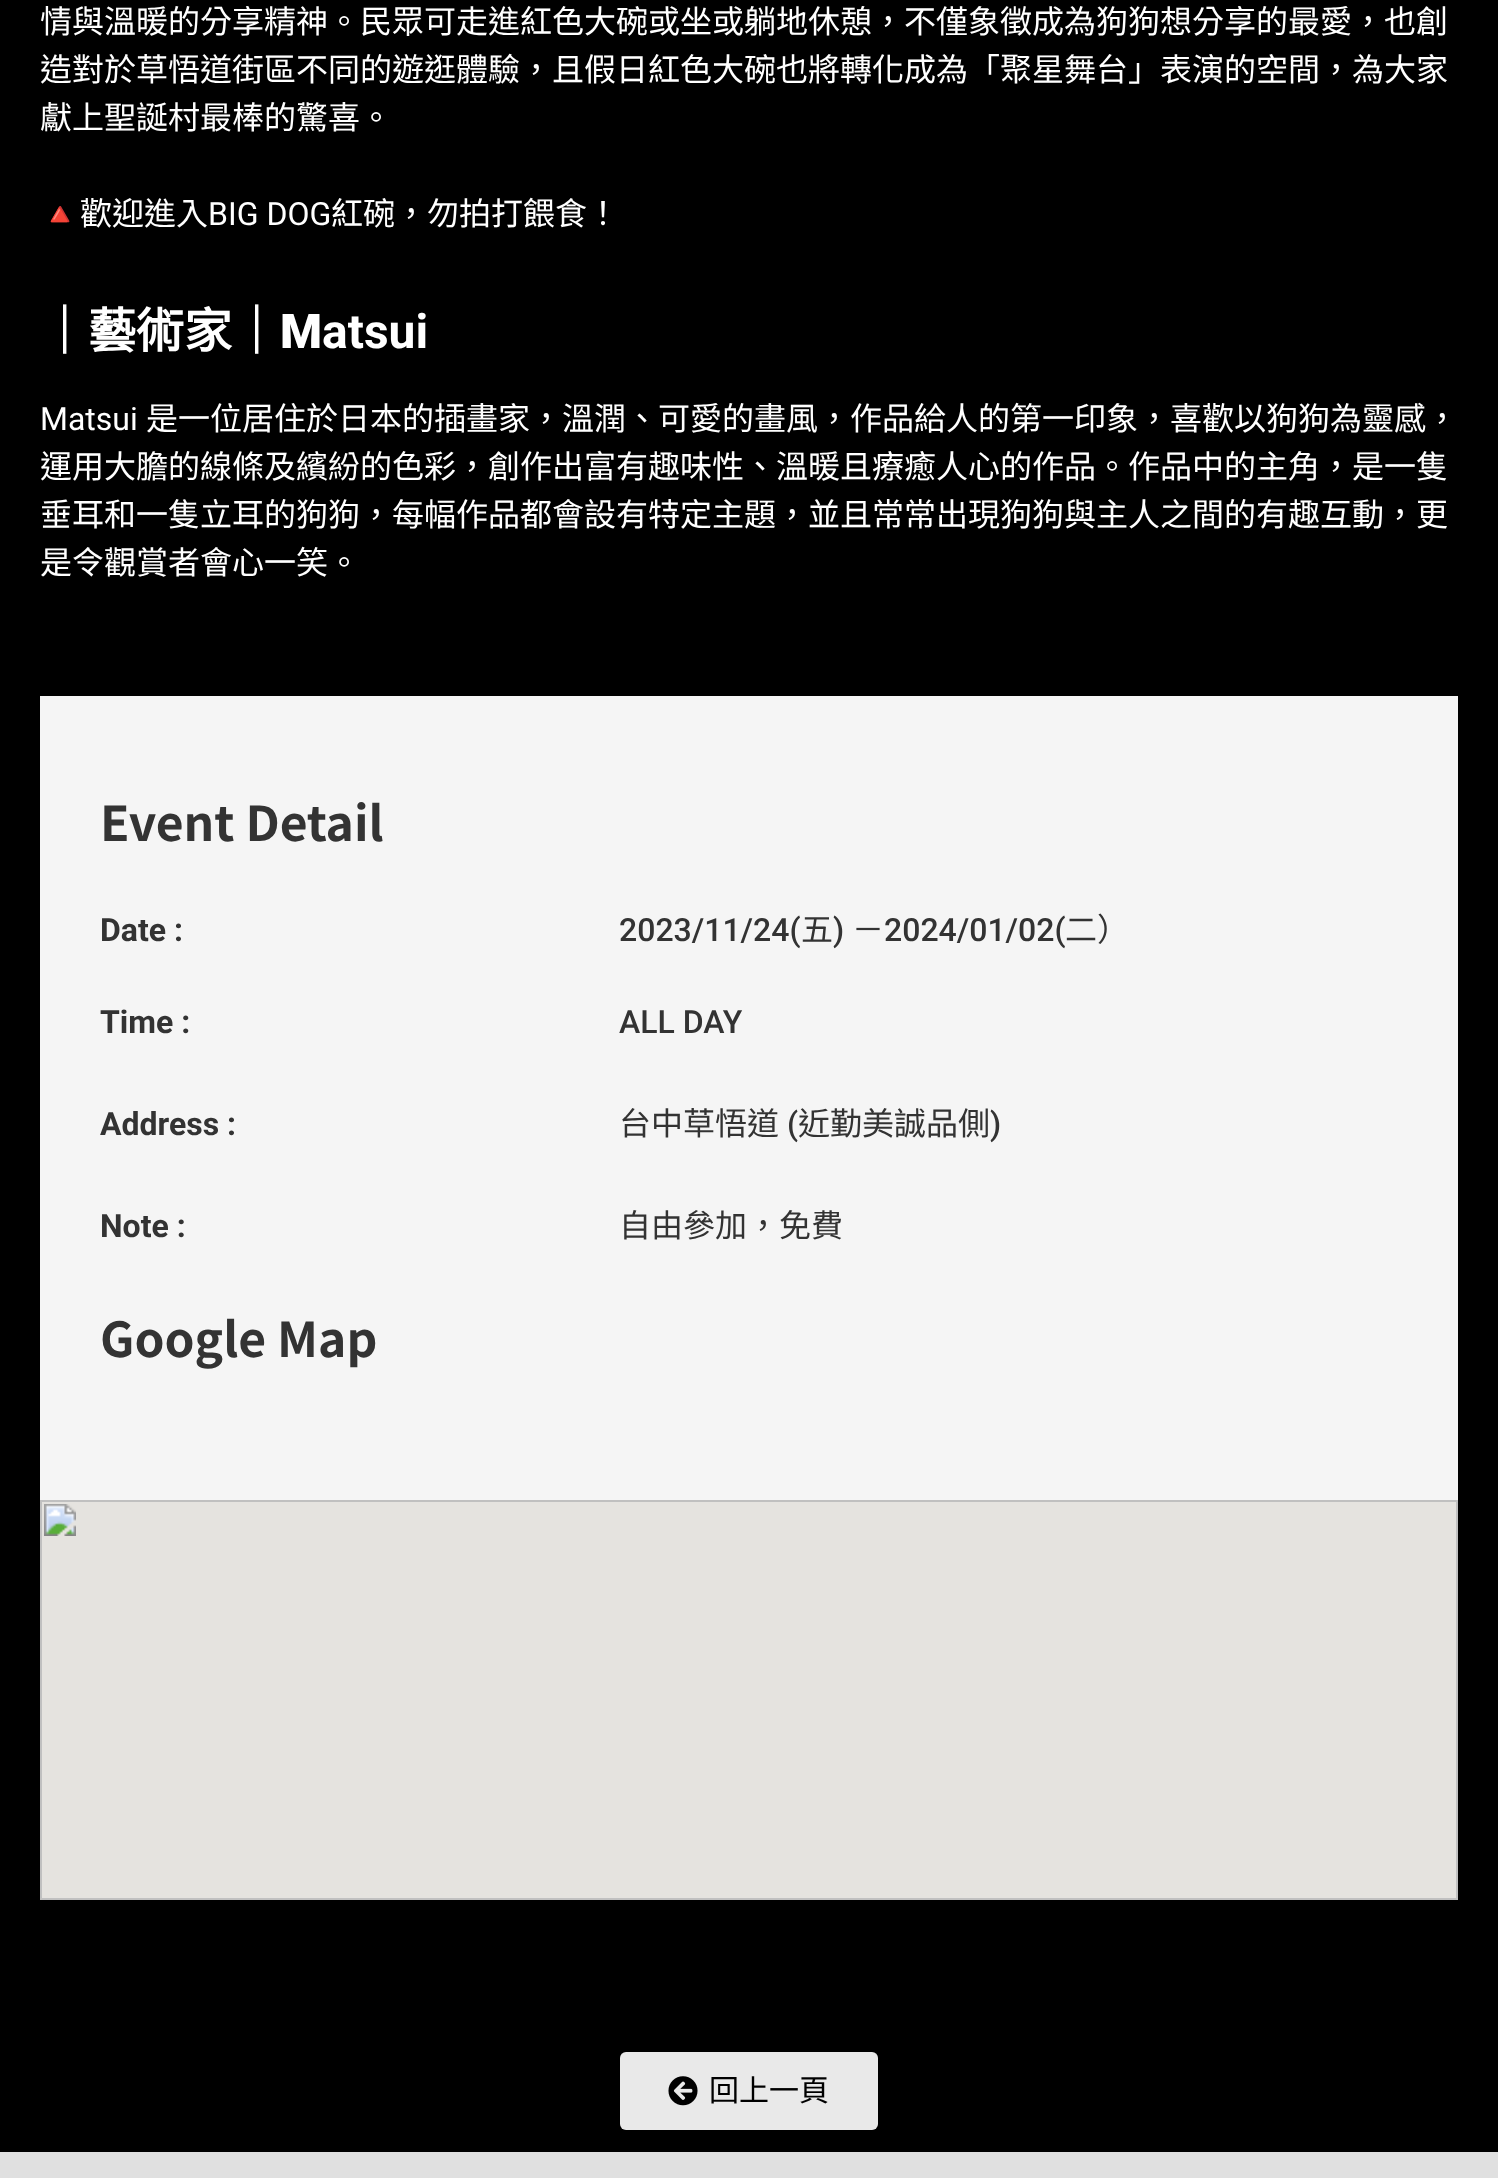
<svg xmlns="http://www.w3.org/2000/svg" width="1498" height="2178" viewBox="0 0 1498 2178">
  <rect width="100%" height="100%" fill="#000"/>
  <path d="M40 696h1418v804H40z" fill="#f5f5f5"/>
  <image x="40" y="1500" width="1418" height="400" href="img/1.png"/>
  <rect x="620" y="2052" width="258" height="78" rx="6" fill="#e9e9e9"/>
  <image x="668" y="2076" width="30" height="30" href="img/2.png"/>
  <path d="M0 2152h1498v26H0z" fill="#e0e0e0"/>
  <g font-family="Noto Sans CJK TC" font-size="32" fill="#fff">
    <text x="40" y="33">情與溫暖的分享精神。民眾可走進紅色大碗或坐或躺地休憩，不僅象徵成為狗狗想分享的最愛，也創</text>
    <text x="40" y="81">造對於草悟道街區不同的遊逛體驗，且假日紅色大碗也將轉化成為「聚星舞台」表演的空間，為大家</text>
    <text x="40" y="129">獻上聖誕村最棒的驚喜。</text>
  </g>
  <text x="40" y="225" font-family="Noto Color Emoji" font-size="32" fill="#fff">🔺</text>
  <text x="80" y="225" font-family="Noto Sans CJK TC" font-size="32" fill="#fff">歡迎進入</text>
  <text x="208" y="225" font-family="Roboto" font-size="32" fill="#fff">BIG DOG</text>
  <text x="331" y="225" font-family="Noto Sans CJK TC" font-size="32" fill="#fff">紅碗，勿拍打餵食！</text>
  <text x="40" y="348" font-family="Noto Sans CJK TC" font-size="48" font-weight="bold" fill="#fff">｜藝術家｜</text>
  <text x="280" y="348" font-family="Roboto" font-size="48" font-weight="900" fill="#fff">M</text>
  <text x="322" y="348" font-family="Roboto" font-size="48" font-weight="bold" fill="#fff">atsui</text>
  <text x="40" y="430" font-family="Roboto" font-size="32" fill="#fff">Matsui</text>
  <g font-family="Noto Sans CJK TC" font-size="32" fill="#fff">
    <text x="146" y="430">是一位居住於日本的插畫家，溫潤、可愛的畫風，作品給人的第一印象，喜歡以狗狗為靈感，</text>
    <text x="40" y="478">運用大膽的線條及繽紛的色彩，創作出富有趣味性、溫暖且療癒人心的作品。作品中的主角，是一隻</text>
    <text x="40" y="526">垂耳和一隻立耳的狗狗，每幅作品都會設有特定主題，並且常常出現狗狗與主人之間的有趣互動，更</text>
    <text x="40" y="574">是令觀賞者會心一笑。</text>
  </g>
  <text x="100" y="841" font-family="Noto Sans TC" font-size="48" font-weight="bold" fill="#333">Event Detail</text>
  <text x="100" y="941" font-family="Roboto" font-size="32" font-weight="bold" fill="#333">Date :</text>
  <text x="619" y="941" font-family="Roboto" font-size="32" font-weight="500" fill="#333">2023/11/24(</text>
  <text x="801" y="941" font-family="Noto Sans CJK TC" font-size="32" fill="#333">五</text>
  <text x="833" y="941" font-family="Roboto" font-size="32" font-weight="500" fill="#333">)</text>
  <text x="852" y="941" font-family="Noto Sans CJK TC" font-size="32" fill="#333">－</text>
  <text x="884" y="941" font-family="Roboto" font-size="32" font-weight="500" fill="#333">2024/01/02(</text>
  <text x="1065" y="941" font-family="Noto Sans CJK TC" font-size="32" fill="#333">二）</text>
  <text x="100" y="1033" font-family="Roboto" font-size="32" font-weight="bold" fill="#333">Time :</text>
  <text x="619" y="1033" font-family="Roboto" font-size="32" font-weight="500" fill="#333">ALL DAY</text>
  <text x="100" y="1135" font-family="Roboto" font-size="32" font-weight="bold" fill="#333">Address :</text>
  <text x="619" y="1135" font-family="Noto Sans CJK TC" font-size="32" fill="#333">台中草悟道</text>
  <text x="787" y="1135" font-family="Roboto" font-size="32" font-weight="500" fill="#333">(</text>
  <text x="798" y="1135" font-family="Noto Sans CJK TC" font-size="32" fill="#333">近勤美誠品側</text>
  <text x="990" y="1135" font-family="Roboto" font-size="32" font-weight="500" fill="#333">)</text>
  <text x="100" y="1237" font-family="Roboto" font-size="32" font-weight="bold" fill="#333">Note :</text>
  <text x="619" y="1237" font-family="Noto Sans CJK TC" font-size="32" fill="#333">自由參加，免費</text>
  <text x="100" y="1357" font-family="Noto Sans TC" font-size="48" font-weight="bold" fill="#333">Google Map</text>
  <text x="709" y="2101" font-family="Noto Sans CJK TC" font-size="30" fill="#000">回上一頁</text>
</svg>
